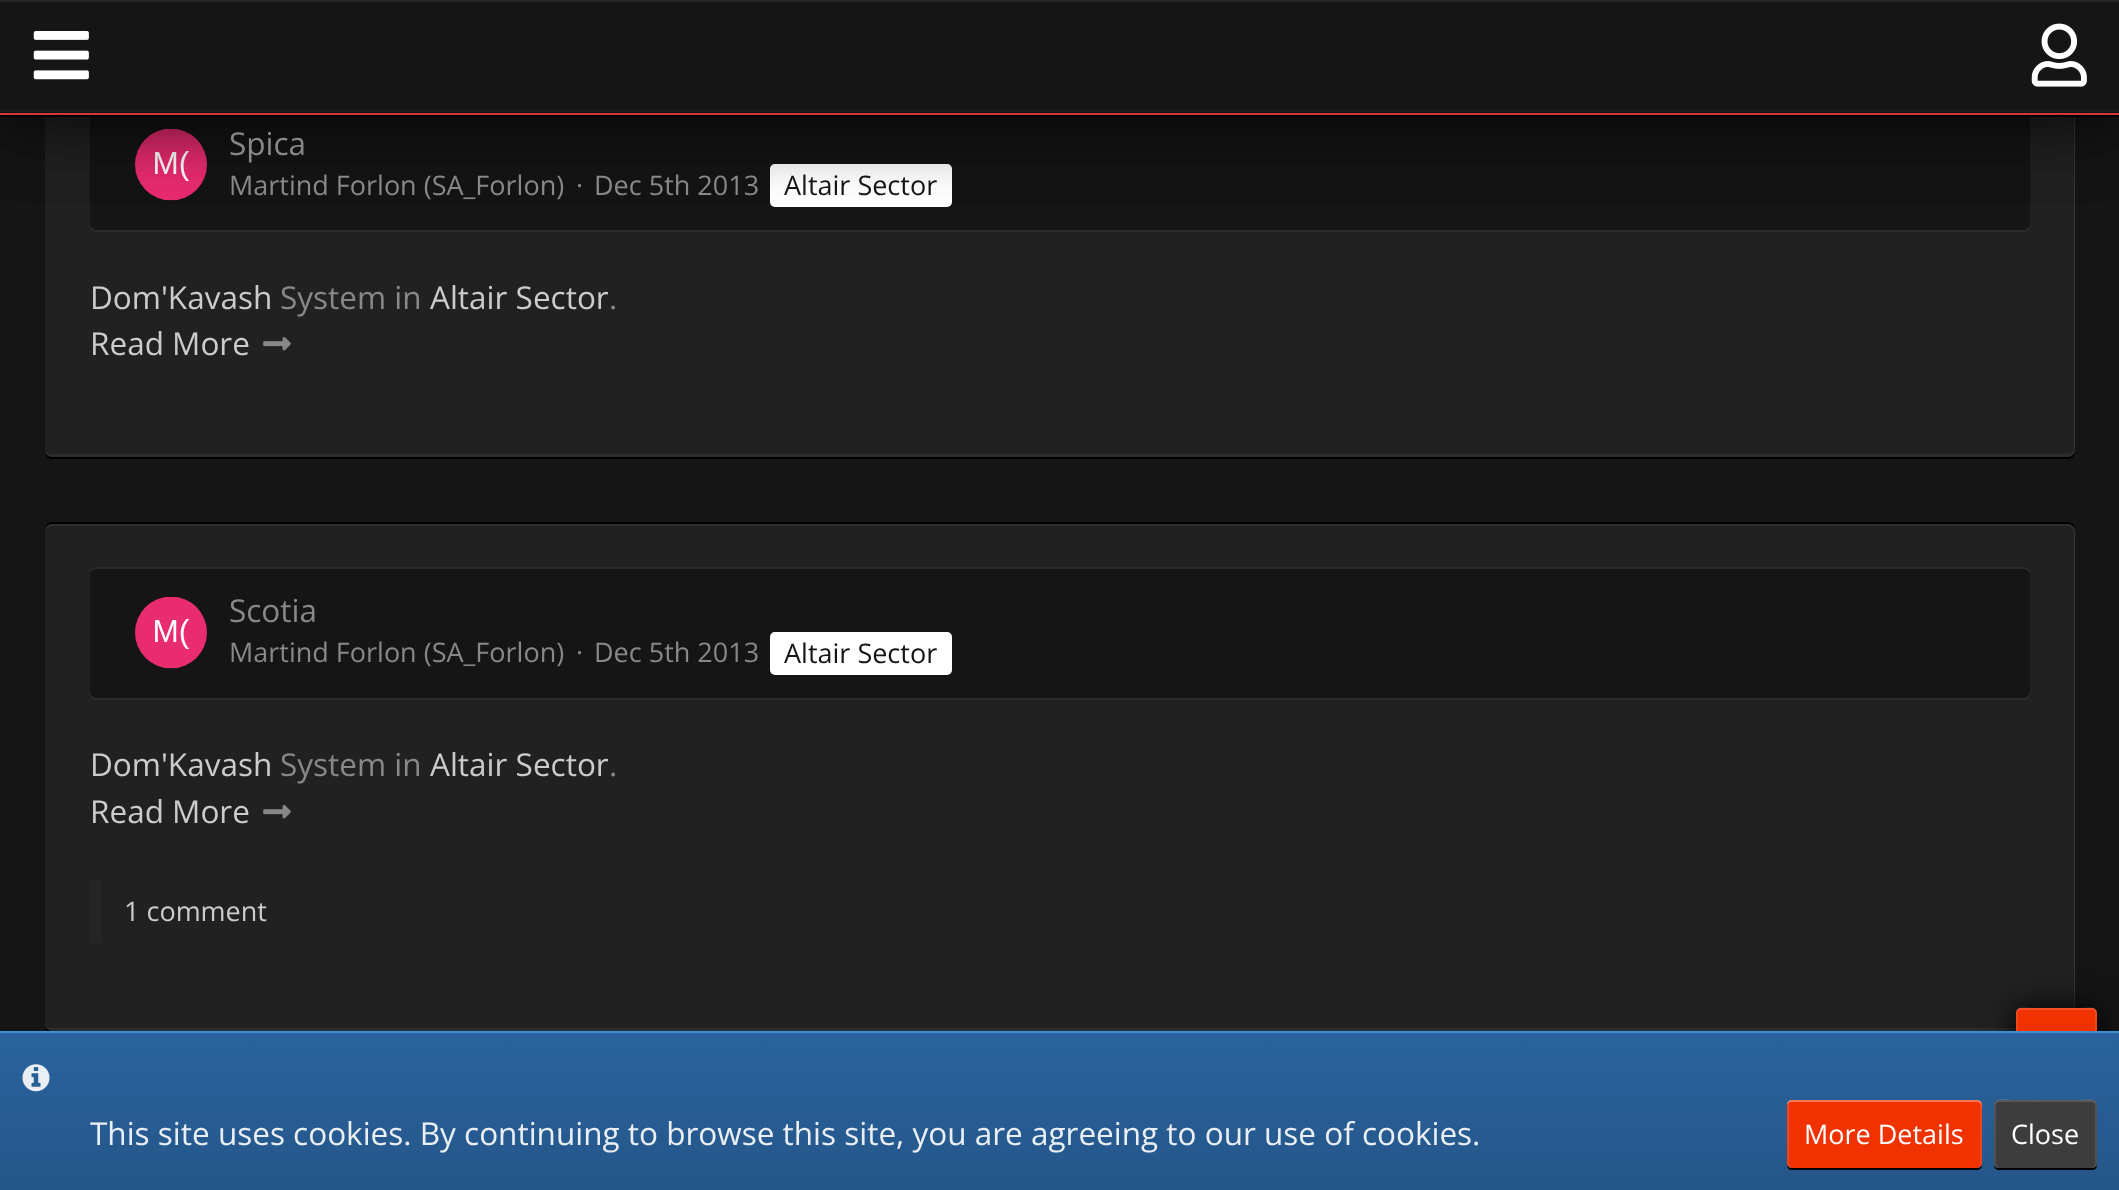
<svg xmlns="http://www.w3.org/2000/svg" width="2119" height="1190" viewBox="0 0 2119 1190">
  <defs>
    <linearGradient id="g1" gradientUnits="userSpaceOnUse" x1="1060" y1="1033" x2="1060" y2="1190"><stop offset="0" stop-color="#2a639d"/><stop offset="1" stop-color="#255689"/></linearGradient>
  </defs>
  <rect width="100%" height="100%" fill="#151515"/>
  <path d="M45 450V452C45 456 48 459 52 459H2068C2072 459 2075 456 2075 452V66L2074 63V450C2074 454 2071 457 2068 457H52C48 457 45 454 45 450Z" fill="#000"/>
  <rect x="45" y="56" width="2030" height="401" rx="7" fill="#212121"/>
  <path d="M45 448V450C45 454 48 457 52 457H2068C2072 457 2075 454 2075 450V63C2075 62 2075 60 2074 59V448C2074 451 2071 454 2068 454H52C48 454 45 451 45 448Z" fill="#ffffff0d"/>
  <path d="M52 58H2068C2071 58 2074 62 2074 65V454C2075 453 2075 451 2075 450V63C2075 59 2072 56 2068 56H52C48 56 45 59 45 63V65C45 62 48 58 52 58Z" fill="#ffffff0d"/>
  <path d="M90 223V225C90 229 93 232 97 232H2023C2027 232 2030 229 2030 225V111V108V223C2030 226 2026 230 2023 230H97C93 230 90 226 90 223Z" fill="#2c2c2c"/>
  <rect x="90" y="101" width="1940" height="129" rx="7" fill="#151515"/>
  <image x="135" y="129" width="72" height="72" href="img/3.png"/>
  <rect x="770" y="164" width="182" height="43" rx="5" fill="#fff"/>
  <path d="M774 166H947C950 166 952 169 952 171V169C952 166 950 164 947 164H775C772 164 770 166 770 169V171C770 169 772 166 774 166Z" fill="#ffffff33"/>
  <path d="M0 0h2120v115H0z" fill="#00000080" filter="blur(39.5px)"/>
  <path d="M0 0h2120v115H0z" fill="#00000080" filter="blur(39.5px)"/>
  <path d="M-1 -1h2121v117H-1z" fill="none" stroke="#000000e6" stroke-width="2"/>
  <path d="M0 2h2119v111H0z" fill="#151515"/>
  <path d="M0 110h2119v2H0z" fill="#1c1c1c"/>
  <path d="M0 0h2119v2H0z" fill="#252525"/>
  <path d="M0 113h2119v2H0z" fill="#d8343c"/>
  <image x="33" y="31" width="56" height="49" href="img/1.png"/>
  <image x="2031" y="23" width="56" height="64" href="img/2.png"/>
  <image x="263" y="337" width="28" height="14" href="img/4.png"/>
  <path d="M52 522C47 522 45 527 45 531C45 527 48 524 52 524H2068C2071 524 2074 527 2074 531V1024L2075 1021V529C2075 525 2072 522 2068 522Z" fill="#000"/>
  <path d="M45 1024V1026C45 1030 48 1033 52 1033H2068C2072 1033 2075 1030 2075 1026V534L2074 531V1024C2074 1027 2071 1030 2068 1030H52C48 1030 45 1027 45 1024Z" fill="#000"/>
  <rect x="45" y="524" width="2030" height="507" rx="7" fill="#212121"/>
  <path d="M45 1022V1024C45 1028 48 1031 52 1031H2068C2072 1031 2075 1028 2075 1024V531C2075 530 2075 528 2074 527V1022C2074 1025 2071 1028 2068 1028H52C48 1028 45 1025 45 1022Z" fill="#ffffff0d"/>
  <path d="M52 526H2068C2071 526 2074 530 2074 533V1028C2075 1027 2075 1025 2075 1024V531C2075 527 2072 524 2068 524H52C48 524 45 527 45 531V533C45 530 48 526 52 526Z" fill="#ffffff0d"/>
  <path d="M97 567C92 567 90 572 90 576C90 572 93 569 97 569H2023C2026 569 2030 572 2030 576V691V688V574C2030 570 2027 567 2023 567Z" fill="#2c2c2c"/>
  <path d="M90 691V693C90 697 93 700 97 700H2023C2027 700 2030 697 2030 693V579V576V691C2030 694 2026 698 2023 698H97C93 698 90 694 90 691Z" fill="#2c2c2c"/>
  <rect x="90" y="569" width="1940" height="129" rx="7" fill="#151515"/>
  <image x="135" y="597" width="72" height="72" href="img/3.png"/>
  <rect x="770" y="632" width="182" height="43" rx="5" fill="#fff"/>
  <path d="M774 634H947C950 634 952 637 952 639V637C952 634 950 632 947 632H775C772 632 770 634 770 637V639C770 637 772 634 774 634Z" fill="#ffffff33"/>
  <image x="263" y="805" width="28" height="14" href="img/4.png"/>
  <path d="M90 880h11v63H90z" fill="#262626"/>
  <rect x="2016" y="1008" width="81" height="81" rx="5" fill="#000" filter="blur(17px)"/>
  <rect x="2016" y="1008" width="81" height="81" rx="5" fill="#f03100"/>
  <path d="M2021 1008C2018 1008 2016 1010 2016 1013V1084C2016 1087 2018 1089 2021 1089H2023C2020 1089 2018 1087 2018 1084V1012C2018 1010 2020 1008 2023 1008Z" fill="#ffffff1a"/>
  <path d="M2090 1089C2100 1089 2097 1080 2097 1072V1025C2097 1017 2100 1008 2090 1008C2093 1008 2095 1010 2095 1012V1084C2095 1087 2093 1089 2090 1089Z" fill="#ffffff1a"/>
  <path d="M2020 1010H2092C2095 1010 2097 1012 2097 1015C2097 1005 2088 1008 2080 1008H2033C2025 1008 2016 1005 2016 1015C2016 1012 2018 1010 2020 1010Z" fill="#ffffff26"/>
  <path d="M0 1033h2119v157H0z" fill="url(#g1)"/>
  <path d="M0 1031h2119v2H0z" fill="#428ecd"/>
  <image x="22" y="1064" width="28" height="28" href="img/5.png"/>
  <path d="M1787 1165C1787 1168 1789 1170 1792 1170H1977C1980 1170 1982 1168 1982 1165C1981 1166 1980 1168 1978 1168H1791C1789 1168 1788 1167 1787 1165Z" fill="#000"/>
  <rect x="1787" y="1100" width="195" height="68" rx="5" fill="#f03100"/>
  <path d="M1792 1100C1789 1100 1787 1102 1787 1105V1163C1787 1166 1789 1168 1792 1168H1793C1791 1168 1789 1166 1789 1163V1105C1789 1102 1791 1100 1793 1100Z" fill="#ffffff1a"/>
  <path d="M1976 1168C1984 1168 1982 1159 1982 1153V1115C1982 1109 1984 1100 1976 1100C1978 1100 1980 1102 1980 1105V1163C1980 1166 1978 1168 1976 1168Z" fill="#ffffff1a"/>
  <path d="M1791 1102H1978C1980 1102 1982 1105 1982 1107V1105C1982 1102 1980 1100 1977 1100H1792C1789 1100 1787 1102 1787 1105C1788 1103 1790 1102 1791 1102Z" fill="#ffffff59"/>
  <path d="M1994 1165C1994 1168 1996 1170 1999 1170H2092C2095 1170 2097 1168 2097 1165V1163C2097 1166 2095 1168 2092 1168H1998C1996 1168 1995 1167 1994 1165Z" fill="#000"/>
  <rect x="1994" y="1100" width="103" height="68" rx="5" fill="#3d3d3d"/>
  <path d="M1999 1100C1996 1100 1994 1102 1994 1105V1163C1994 1166 1996 1168 1999 1168H2000C1998 1168 1996 1166 1996 1163V1105C1996 1102 1998 1100 2000 1100Z" fill="#ffffff1a"/>
  <path d="M2090 1168C2099 1168 2097 1161 2097 1153V1115C2097 1107 2099 1100 2090 1100C2093 1100 2095 1102 2095 1105V1163C2095 1166 2093 1168 2090 1168Z" fill="#ffffff1a"/>
  <path d="M1998 1102H2092C2095 1102 2097 1105 2097 1107C2097 1096 2085 1100 2076 1100H2014C2006 1100 1994 1096 1994 1107C1994 1105 1996 1102 1998 1102Z" fill="#ffffff26"/>
  <text x="229" y="155" font-family="Open Sans" font-size="31.5" fill="#888">Spica</text>
  <g font-family="Open Sans" font-size="27" fill="#888">
    <text x="229" y="195">Martind Forlon (SA_Forlon)</text>
    <text x="576" y="195">·</text>
    <text x="594" y="195">Dec 5th 2013</text>
  </g>
  <text x="784" y="195" font-family="Open Sans" font-size="27" fill="#151515">Altair Sector</text>
  <text x="90" y="309" font-family="Open Sans" font-size="31.5" fill="#ccc">Dom'Kavash</text>
  <text x="280" y="309" font-family="Open Sans" font-size="31.5" fill="#888">System in</text>
  <text x="430" y="309" font-family="Open Sans" font-size="31.5" fill="#ccc">Altair Sector</text>
  <text x="609" y="309" font-family="Open Sans" font-size="31.5" fill="#888">.</text>
  <text x="90" y="355" font-family="Open Sans" font-size="31.5" fill="#ccc">Read More</text>
  <text x="229" y="622" font-family="Open Sans" font-size="31.5" fill="#888">Scotia</text>
  <g font-family="Open Sans" font-size="27" fill="#888">
    <text x="229" y="662">Martind Forlon (SA_Forlon)</text>
    <text x="576" y="662">·</text>
    <text x="594" y="662">Dec 5th 2013</text>
  </g>
  <text x="784" y="663" font-family="Open Sans" font-size="27" fill="#151515">Altair Sector</text>
  <text x="90" y="776" font-family="Open Sans" font-size="31.5" fill="#ccc">Dom'Kavash</text>
  <text x="280" y="776" font-family="Open Sans" font-size="31.5" fill="#888">System in</text>
  <text x="430" y="776" font-family="Open Sans" font-size="31.5" fill="#ccc">Altair Sector</text>
  <text x="609" y="776" font-family="Open Sans" font-size="31.5" fill="#888">.</text>
  <text x="90" y="823" font-family="Open Sans" font-size="31.5" fill="#ccc">Read More</text>
  <text x="124" y="921" font-family="Open Sans" font-size="27" fill="#ccc">1 comment</text>
  <text x="90" y="1145" font-family="Open Sans" font-size="31.5" fill="#e9eff4">This site uses cookies. By continuing to browse this site, you are agreeing to our use of cookies.</text>
  <g font-family="Open Sans" font-size="27" fill="#fff">
    <text x="1804" y="1144">More Details</text>
    <text x="2011" y="1144">Close</text>
  </g>
</svg>
